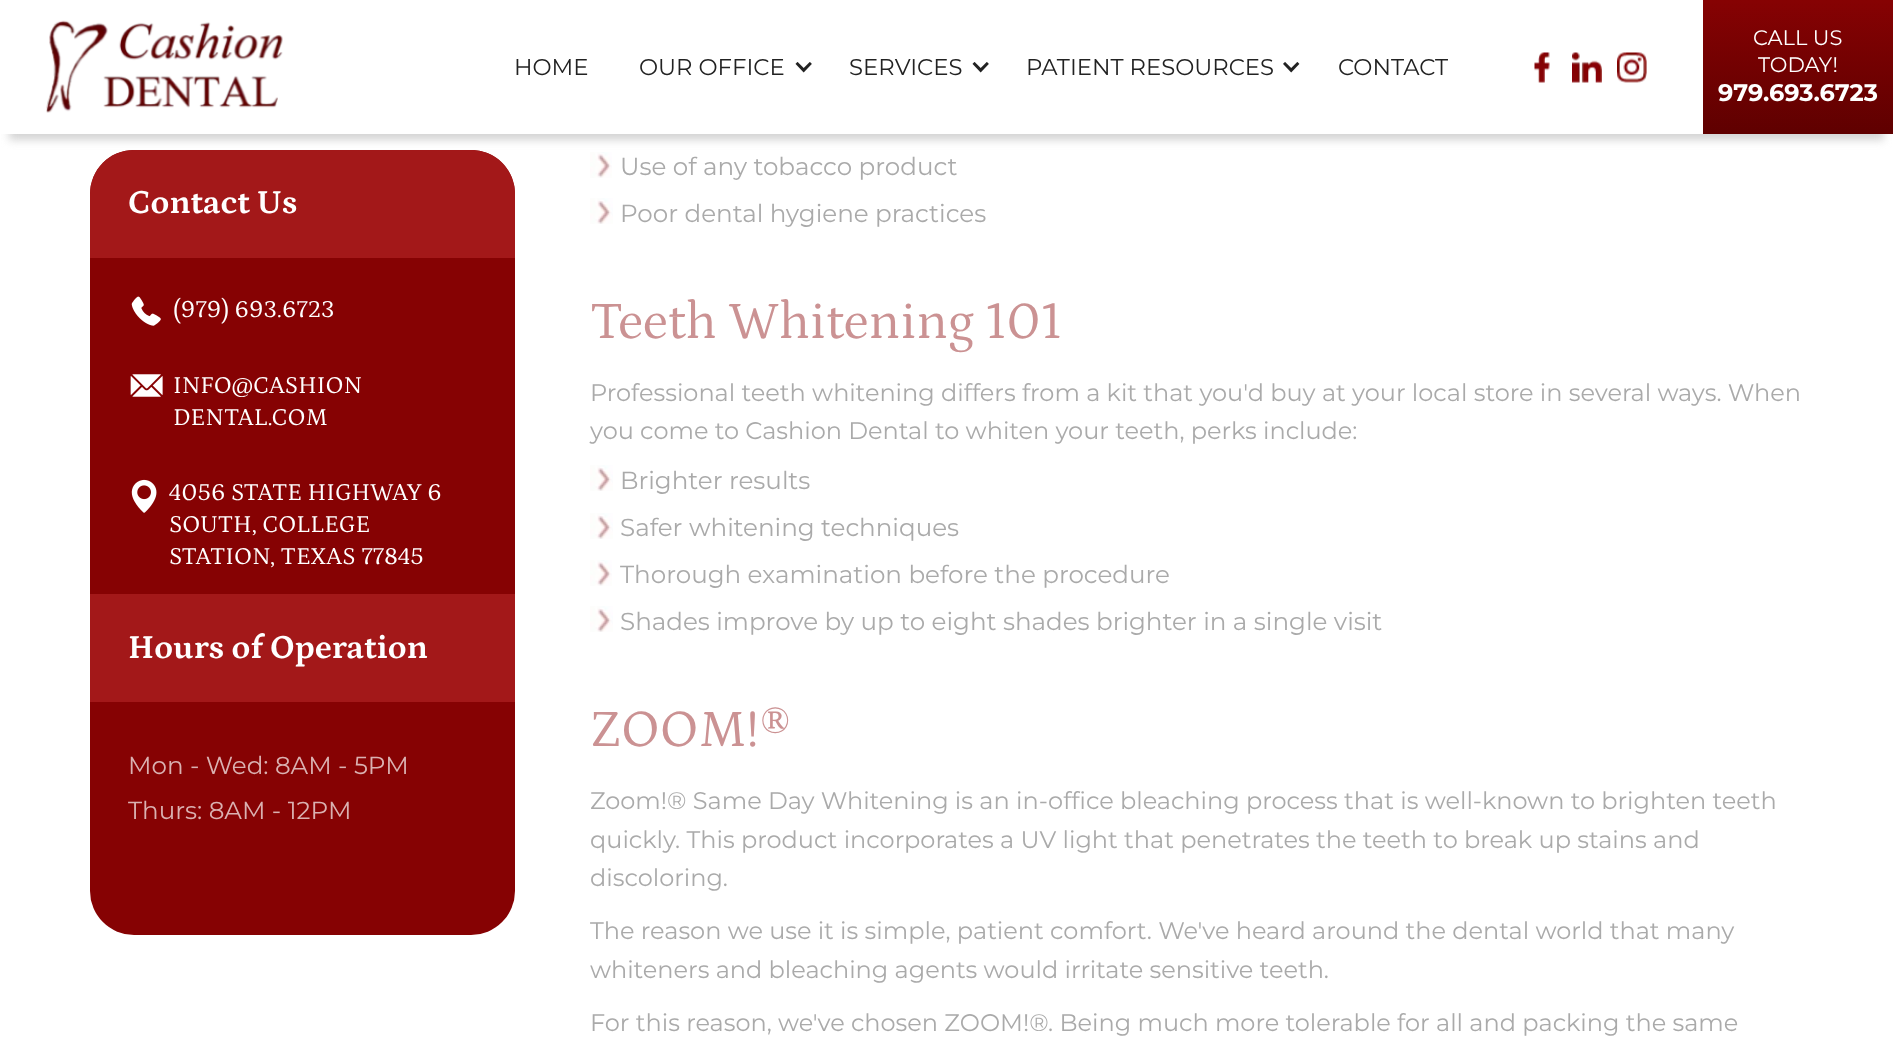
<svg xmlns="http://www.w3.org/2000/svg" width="1893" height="1060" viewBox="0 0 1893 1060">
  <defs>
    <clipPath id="clip1"><path d="M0 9H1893V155H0ZM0 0H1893V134H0Z" clip-rule="evenodd"/></clipPath>
    <linearGradient id="g1" gradientUnits="userSpaceOnUse" x1="1798" y1="0" x2="1798" y2="134"><stop offset="0" stop-color="#860203"/><stop offset="1" stop-color="#5f0000"/></linearGradient>
  </defs>
  <rect width="100%" height="100%" fill="#fff"/>
  <rect x="90" y="150" width="425" height="785" rx="44" fill="#860203"/>
  <path d="M134 150H471C495.5 150 515 169.5 515 194V258H90V194C90 169.5 109.5 150 134 150Z" fill="#a31819"/>
  <image x="590" y="152" width="22" height="26" href="img/10.png"/>
  <g clip-path="url(#clip1)">
    <path d="M9 24h1875v116H9z" fill="#d4d4d4" filter="blur(4.5px)"/>
  </g>
  <image x="46" y="20" width="237" height="93" href="img/1.png"/>
  <image x="795" y="62" width="17" height="11" href="img/2.png"/>
  <image x="972" y="62" width="17" height="11" href="img/2.png"/>
  <image x="1283" y="62" width="17" height="11" href="img/3.png"/>
  <image x="1534" y="52" width="16" height="31" href="img/4.png"/>
  <image x="1572" y="52" width="30" height="31" href="img/5.png"/>
  <image x="1617" y="52" width="30" height="31" href="img/6.png"/>
  <path d="M1703 0h190v134H1703z" fill="url(#g1)"/>
  <image x="131" y="296" width="30" height="30" href="img/7.png"/>
  <image x="130" y="374" width="33" height="23" href="img/8.png"/>
  <image x="131" y="479" width="26" height="34" href="img/9.png"/>
  <path d="M90 594h425v108H90z" fill="#a31819"/>
  <image x="590" y="198" width="23" height="26" href="img/11.png"/>
  <image x="590" y="465" width="23" height="26" href="img/11.png"/>
  <image x="590" y="513" width="23" height="26" href="img/11.png"/>
  <image x="590" y="560" width="22" height="26" href="img/10.png"/>
  <image x="590" y="606" width="23" height="26" href="img/11.png"/>
  <g font-family="Montserrat" font-size="22.75" fill="#222">
    <text x="514" y="75">HOME</text>
    <text x="639" y="75">OUR OFFICE</text>
    <text x="849" y="75">SERVICES</text>
    <text x="1026" y="75">PATIENT RESOURCES</text>
    <text x="1338" y="75">CONTACT</text>
  </g>
  <g font-family="Montserrat" font-size="21" fill="#fff">
    <text x="1753" y="45">CALL US</text>
    <text x="1758" y="72">TODAY!</text>
  </g>
  <text x="1718" y="101" font-family="Montserrat" font-size="24" font-weight="bold" fill="#fff">979.693.6723</text>
  <text x="128" y="213" font-family="Petrona" font-size="34" font-weight="bold" fill="#fff">Contact Us</text>
  <g font-family="Petrona" font-size="24.6" fill="#fff">
    <text x="173" y="317">(979) 693.6723</text>
    <text x="173" y="393">INFO@CASHION</text>
    <text x="173" y="425">DENTAL.COM</text>
    <text x="169" y="500">4056 STATE HIGHWAY 6</text>
    <text x="169" y="532">SOUTH, COLLEGE</text>
    <text x="169" y="564">STATION, TEXAS 77845</text>
  </g>
  <text x="128" y="658" font-family="Petrona" font-size="34" font-weight="bold" fill="#fff">Hours of Operation</text>
  <g font-family="Montserrat" font-size="24.6" fill="#dab1b1">
    <text x="128" y="774">Mon - Wed: 8AM - 5PM</text>
    <text x="128" y="819">Thurs: 8AM - 12PM</text>
  </g>
  <g font-family="Montserrat" font-size="24.6" fill="#aaa">
    <text x="620" y="175">Use of any tobacco product</text>
    <text x="620" y="222">Poor dental hygiene practices</text>
  </g>
  <text x="590" y="338" font-family="'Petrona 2'" font-size="53" fill="#cb9293">Teeth Whitening 101</text>
  <g font-family="Montserrat" font-size="24" fill="#aaa">
    <text x="590" y="401">Professional teeth whitening differs from a kit that you'd buy at your local store in several ways. When</text>
    <text x="590" y="439">you come to Cashion Dental to whiten your teeth, perks include:</text>
  </g>
  <g font-family="Montserrat" font-size="24.6" fill="#aaa">
    <text x="620" y="489">Brighter results</text>
    <text x="620" y="536">Safer whitening techniques</text>
    <text x="620" y="583">Thorough examination before the procedure</text>
    <text x="620" y="630">Shades improve by up to eight shades brighter in a single visit</text>
  </g>
  <text x="590" y="746" font-family="'Petrona 2'" font-size="53" fill="#cb9293">ZOOM!®</text>
  <g font-family="Montserrat" font-size="24" fill="#aaa">
    <text x="590" y="809">Zoom!® Same Day Whitening is an in-office bleaching process that is well-known to brighten teeth</text>
    <text x="590" y="848">quickly. This product incorporates a UV light that penetrates the teeth to break up stains and</text>
    <text x="590" y="886">discoloring.</text>
    <text x="590" y="939">The reason we use it is simple, patient comfort. We've heard around the dental world that many</text>
    <text x="590" y="978">whiteners and bleaching agents would irritate sensitive teeth.</text>
    <text x="590" y="1031">For this reason, we've chosen ZOOM!®. Being much more tolerable for all and packing the same</text>
  </g>
</svg>
